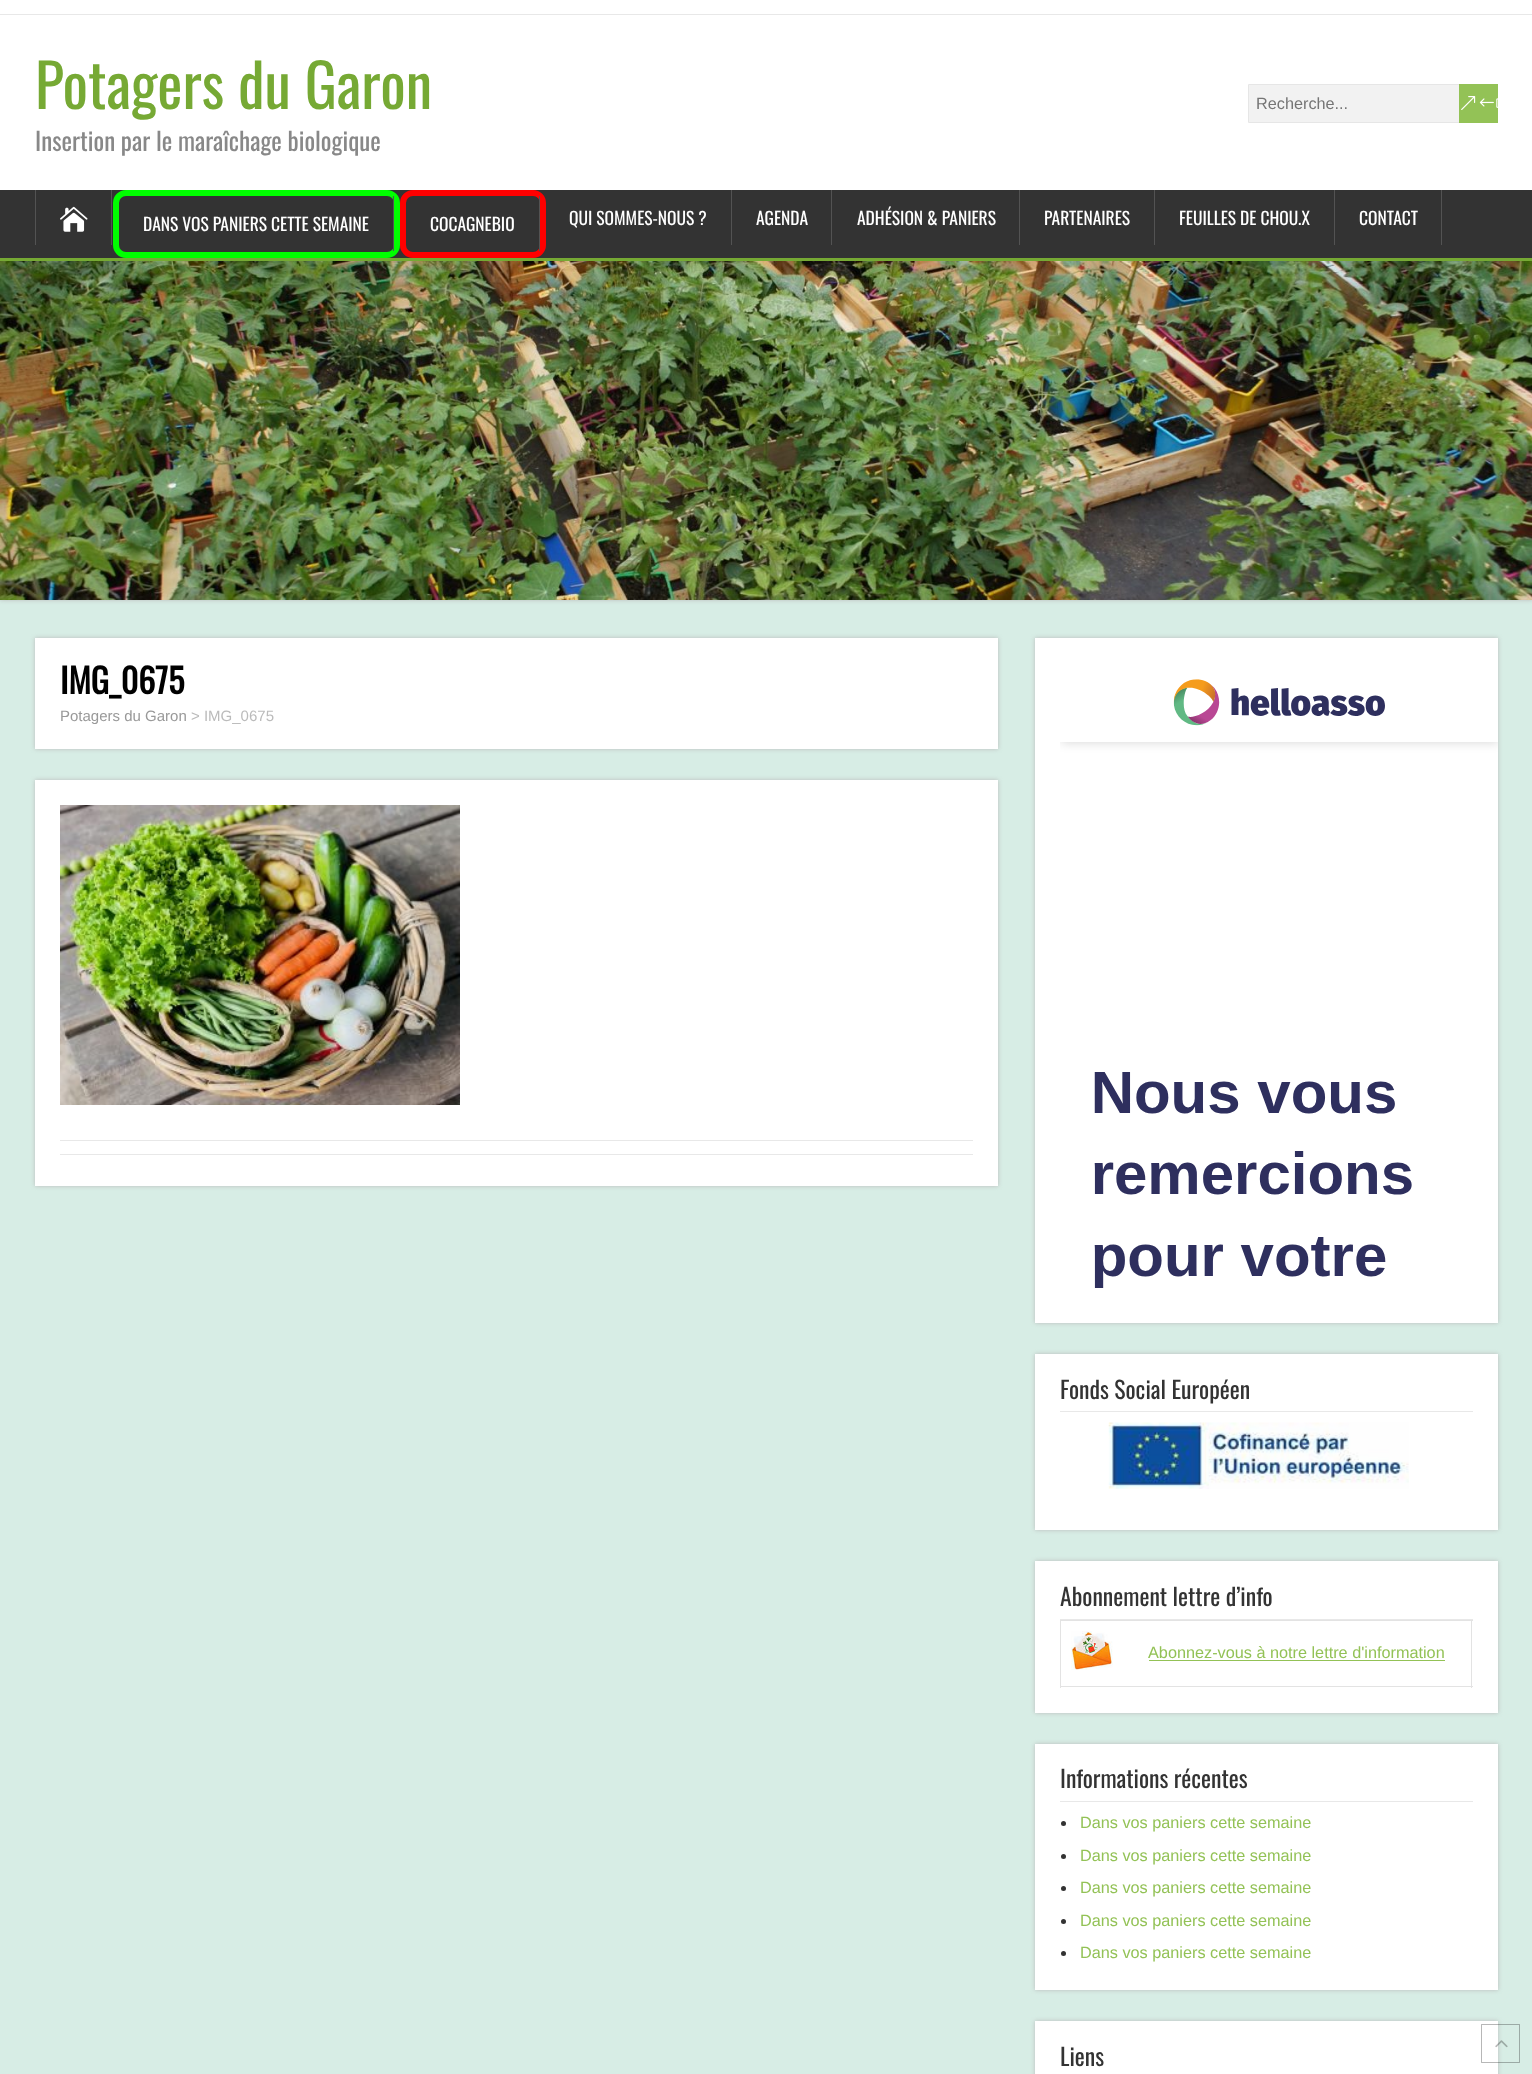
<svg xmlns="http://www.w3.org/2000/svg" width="1532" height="2074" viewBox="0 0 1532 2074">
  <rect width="100%" height="100%" fill="#d7ede5"/>
  <path d="M0 -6h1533v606H0z" fill="#bbb" filter="blur(2px)"/>
  <path d="M0 0h1532v190H0z" fill="#fff"/>
  <path d="M0 14h1532v1H0z" fill="#e8e8e8"/>
  <path d="M1249 85h210v37H1249z" fill="#f2f2f2"/>
  <path d="M1248.5 84.5h249v38H1248.5z" fill="none" stroke="#e6e6e6"/>
  <path d="M1459 84h39v39H1459z" fill="#93c256"/>
  <image x="1461" y="96" width="37" height="14" href="img/1.png"/>
  <path d="M0 190h1532v68H0z" fill="#333"/>
  <path d="M0 258h1532v3H0z" fill="#76a934"/>
  <path d="M111 190h1v55H111z" fill="#535353"/>
  <path d="M35 190h1v55H35z" fill="#535353"/>
  <image x="60" y="206" width="28" height="26" href="img/2.png"/>
  <rect x="116" y="193" width="281" height="62" rx="10" fill="none" stroke="#0f0" stroke-width="6"/>
  <path d="M393 196h1v55H393z" fill="#535353"/>
  <rect x="403" y="193" width="140" height="62" rx="10" fill="none" stroke="#f00" stroke-width="6"/>
  <path d="M539 196h1v55H539z" fill="#535353"/>
  <path d="M731 190h1v55H731z" fill="#535353"/>
  <path d="M831 190h1v55H831z" fill="#535353"/>
  <path d="M1019 190h1v55H1019z" fill="#535353"/>
  <path d="M1154 190h1v55H1154z" fill="#535353"/>
  <path d="M1334 190h1v55H1334z" fill="#535353"/>
  <path d="M1441 190h1v55H1441z" fill="#535353"/>
  <image x="0" y="261" width="1532" height="339" href="img/3.png"/>
  <path d="M35 638h963v111H35z" fill="#bbb" filter="blur(2px)"/>
  <path d="M35 638h963v111H35z" fill="#fff"/>
  <path d="M35 780h963v406H35z" fill="#bbb" filter="blur(2px)"/>
  <path d="M35 780h963v406H35z" fill="#fff"/>
  <image x="60" y="805" width="400" height="300" href="img/4.png"/>
  <path d="M60 1140h913v1H60z" fill="#e8e8e8"/>
  <path d="M60 1154h913v1H60z" fill="#e8e8e8"/>
  <path d="M1035 638h463v685H1035z" fill="#bbb" filter="blur(2px)"/>
  <path d="M1035 638h463v685H1035z" fill="#fff"/>
  <image x="1060" y="679" width="438" height="609" href="img/5.png"/>
  <path d="M1035 1354h463v176H1035z" fill="#bbb" filter="blur(2px)"/>
  <path d="M1035 1354h463v176H1035z" fill="#fff"/>
  <path d="M1060 1411h413v1H1060z" fill="#e8e8e8"/>
  <image x="1108" y="1422" width="301" height="67" href="img/6.png"/>
  <path d="M1035 1561h463v152H1035z" fill="#bbb" filter="blur(2px)"/>
  <path d="M1035 1561h463v152H1035z" fill="#fff"/>
  <path d="M1060 1619h413v1H1060z" fill="#e8e8e8"/>
  <path d="M1060 1620h413v1H1060z" fill="#e3e3e3"/>
  <path d="M1471 1620h1v68H1471z" fill="#e3e3e3"/>
  <path d="M1060 1686h413v1H1060z" fill="#e3e3e3"/>
  <path d="M1060 1620h1v68H1060z" fill="#e3e3e3"/>
  <image x="1071" y="1631" width="42" height="39" href="img/7.png"/>
  <path d="M1149 1660h296v1H1149z" fill="#93c256"/>
  <path d="M1035 1744h463v246H1035z" fill="#bbb" filter="blur(2px)"/>
  <path d="M1035 1744h463v246H1035z" fill="#fff"/>
  <path d="M1060 1801h413v1H1060z" fill="#e8e8e8"/>
  <circle cx="1063.5" cy="1823.5" r="2.5" fill="#333"/>
  <circle cx="1063.5" cy="1856.5" r="2.5" fill="#333"/>
  <circle cx="1063.5" cy="1888.5" r="2.5" fill="#333"/>
  <circle cx="1063.5" cy="1921.5" r="2.5" fill="#333"/>
  <circle cx="1063.5" cy="1953.5" r="2.5" fill="#333"/>
  <path d="M1035 2021h463v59H1035z" fill="#bbb" filter="blur(2px)"/>
  <path d="M1035 2021h463v53H1035z" fill="#fff"/>
  <path d="M1481.5 2024.5h38v38H1481.5z" fill="none" stroke="#1111114d"/>
  <image x="1495" y="2040" width="13" height="8" href="img/8.png"/>
  <text x="35" y="109" font-family="Oswald" font-size="60" fill="#76a934">Potagers du Garon</text>
  <text x="1256" y="109" font-family="Liberation Sans" font-size="16.25" fill="#757575">Recherche...</text>
  <text x="35" y="151" font-family="Oswald" font-size="25" fill="#888">Insertion par le maraîchage biologique</text>
  <g font-family="Oswald" font-size="17.5" fill="#fff">
    <text x="143" y="231">DANS VOS PANIERS CETTE SEMAINE</text>
    <text x="430" y="231">COCAGNEBIO</text>
    <text x="569" y="225">QUI SOMMES-NOUS ?</text>
    <text x="756" y="225">AGENDA</text>
    <text x="857" y="225">ADHÉSION &amp; PANIERS</text>
    <text x="1044" y="225">PARTENAIRES</text>
    <text x="1179" y="225">FEUILLES DE CHOU.X</text>
    <text x="1359" y="225">CONTACT</text>
  </g>
  <text x="60" y="694" font-family="Oswald" font-size="34" font-weight="bold" fill="#000">IMG_0675</text>
  <text x="60" y="721" font-family="Liberation Sans" font-size="15" fill="#999">Potagers du Garon</text>
  <text x="191" y="721" font-family="Liberation Sans" font-size="15" fill="#bbb">&gt; IMG_0675</text>
  <g font-family="Oswald" font-size="23.75" fill="#333">
    <text x="1060" y="1399">Fonds Social Européen</text>
    <text x="1060" y="1606">Abonnement lettre d’info</text>
  </g>
  <text x="1148" y="1658" font-family="Liberation Sans" font-size="16.25" fill="#93c256">Abonnez-vous à notre lettre d'information</text>
  <text x="1060" y="1788" font-family="Oswald" font-size="23.75" fill="#333">Informations récentes</text>
  <g font-family="Liberation Sans" font-size="16.25" fill="#93c256">
    <text x="1080" y="1828">Dans vos paniers cette semaine</text>
    <text x="1080" y="1861">Dans vos paniers cette semaine</text>
    <text x="1080" y="1893">Dans vos paniers cette semaine</text>
    <text x="1080" y="1926">Dans vos paniers cette semaine</text>
    <text x="1080" y="1958">Dans vos paniers cette semaine</text>
  </g>
  <text x="1060" y="2066" font-family="Oswald" font-size="23.75" fill="#333">Liens</text>
</svg>
